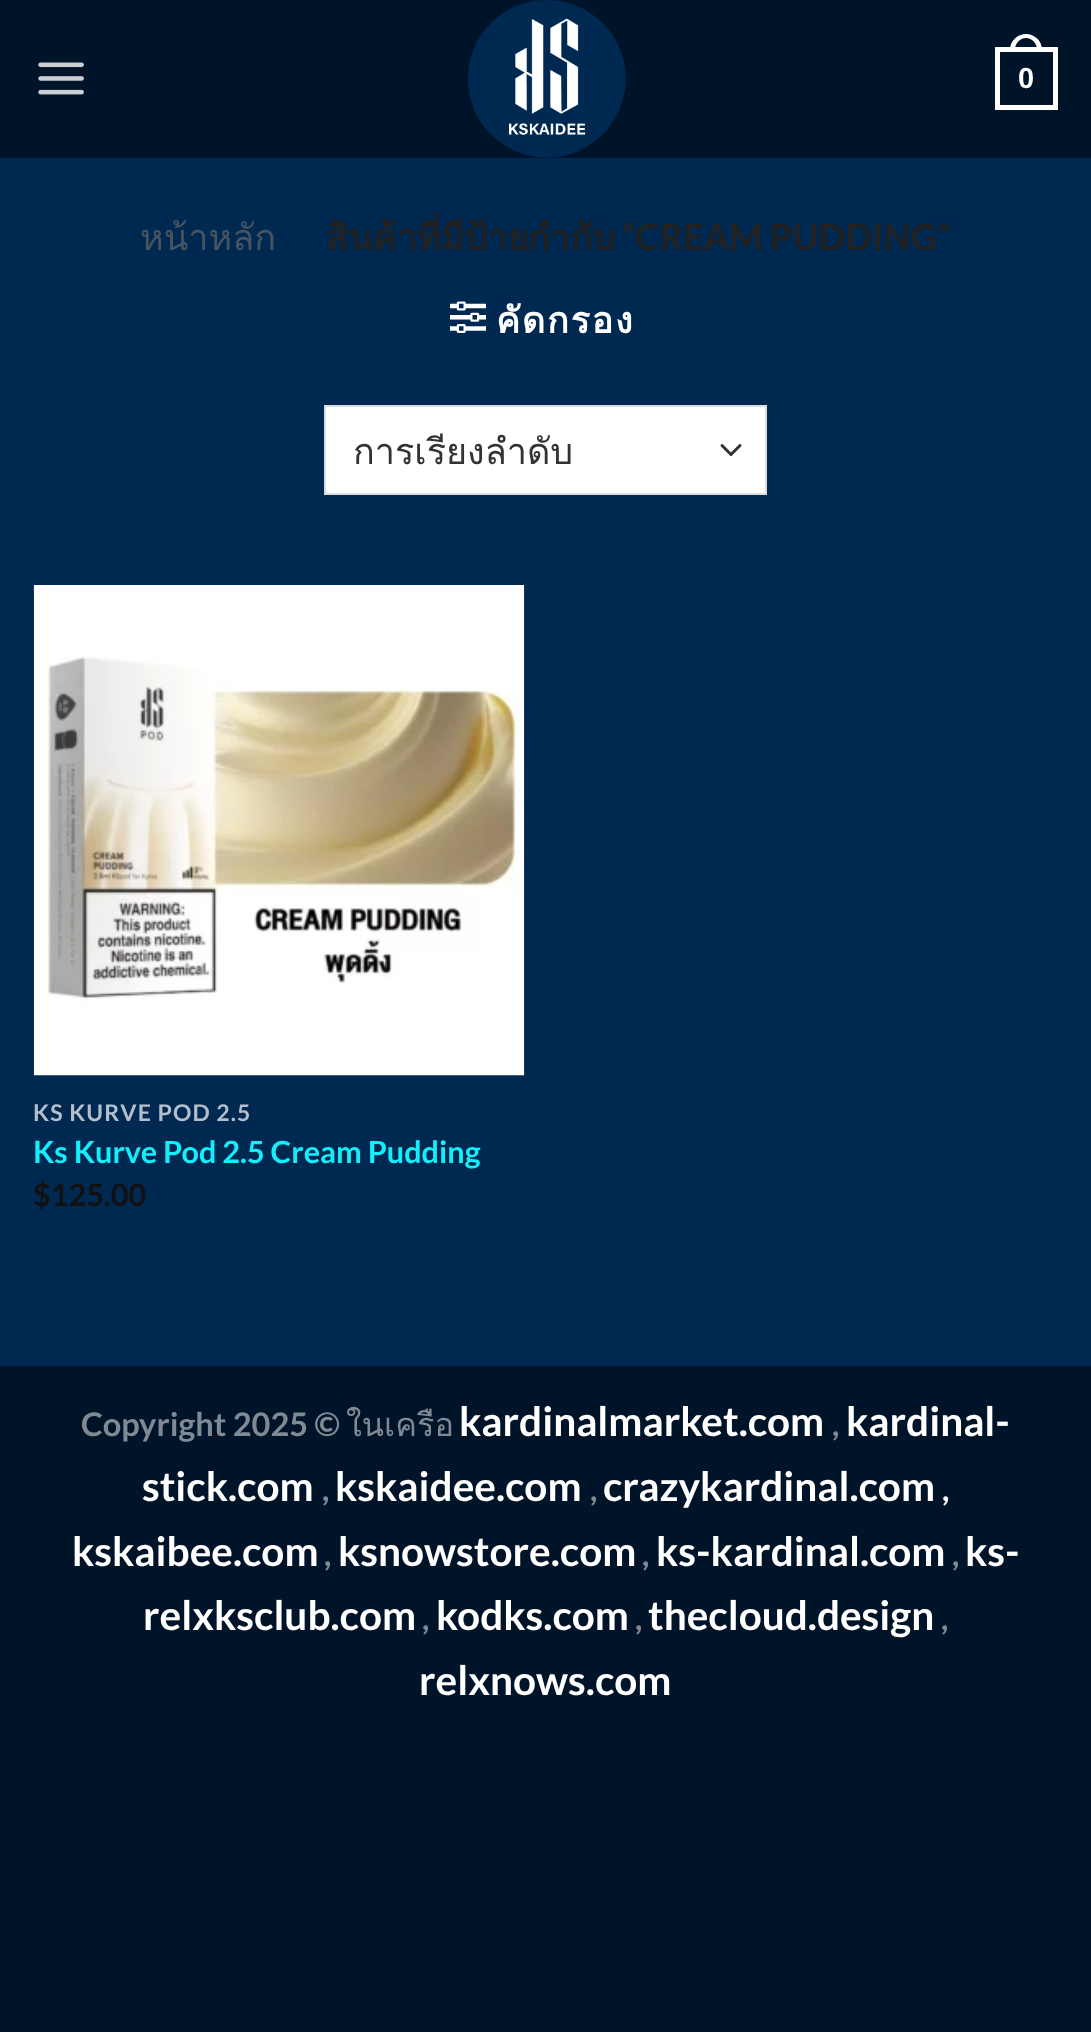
<svg xmlns="http://www.w3.org/2000/svg" width="1091" height="2032" viewBox="0 0 1091 2032">
  <rect width="100%" height="100%" fill="#001429"/>
  <path d="M0 158h1091v1208H0z" fill="#002952"/>
  <image x="38" y="62" width="46" height="33" href="img/1.png"/>
  <image x="468" y="0" width="158" height="158" href="img/2.png"/>
  <path d="M997.5 49.5h58v58H997.5z" fill="none" stroke="#fff" stroke-width="5"/>
  <path d="M1026 34C1034.5 34 1042 41 1042 49.5V52H1010V49.5C1010 41 1017.5 34 1026 34ZM1026 38C1032 38 1037 43.5 1037 49.5V52H1015V49.5C1015 43.5 1020 38 1026 38Z" fill="#fff" fill-rule="evenodd"/>
  <path d="M326 407h439v86H326z" fill="#fff"/>
  <path d="M722 445.5L731 454.5L740 445.5" fill="none" stroke="#333" stroke-width="3" stroke-linecap="round" stroke-linejoin="round"/>
  <path d="M325 406h441v88H325z" fill="none" stroke="#ddd" stroke-width="2"/>
  <image x="33" y="585" width="492" height="491" href="img/4.png"/>
  <text x="1018" y="88" font-family="Liberation Sans" font-size="29" font-weight="bold" fill="#fff">0</text>
  <text x="140" y="250" font-family="Loma" font-size="36" fill="#475460">หน้าหลัก</text>
  <text x="326" y="250" font-family="Loma" font-size="36" font-weight="bold" fill="#222">สินค้าที่มีป้ายกำกับ</text>
  <text x="622" y="250" font-family="Lato" font-size="36" font-weight="bold" fill="#222">“CREAM PUDDING”</text>
  <text x="496" y="333" font-family="Loma" font-size="36" font-weight="bold" letter-spacing="1.75" fill="#fff">คัดกรอง</text>
  <image x="450" y="301" width="36" height="32" href="img/3.png"/>
  <text x="353" y="464" font-family="Loma" font-size="36" fill="#333">การเรียงลำดับ</text>
  <text x="33" y="1121" font-family="Lato" font-size="23" font-weight="bold" letter-spacing="1.1" fill="#b3bfcb">KS KURVE POD 2.5</text>
  <text x="33" y="1163" font-family="Lato" font-size="30.6" font-weight="bold" fill="#14eefa">Ks Kurve Pod 2.5 Cream Pudding</text>
  <text x="33" y="1206" font-family="Lato" font-size="30.6" font-weight="bold" fill="#111">$125.00</text>
  <text x="81" y="1436" font-family="Lato" font-size="32.5" font-weight="bold" fill="#808a94">Copyright 2025 ©</text>
  <text x="346" y="1436" font-family="Loma" font-size="32.5" fill="#808a94">ในเครือ</text>
  <text x="459" y="1436" font-family="Lato" font-size="40.5" font-weight="bold" fill="#fff">kardinalmarket.com</text>
  <text x="832" y="1436" font-family="Lato" font-size="32.5" font-weight="bold" fill="#808a94">,</text>
  <g font-family="Lato" font-size="40.5" font-weight="bold" fill="#fff">
    <text x="846" y="1436">kardinal-</text>
    <text x="142" y="1501">stick.com</text>
  </g>
  <text x="322" y="1501" font-family="Lato" font-size="32.5" font-weight="bold" fill="#808a94">,</text>
  <text x="335" y="1501" font-family="Lato" font-size="40.5" font-weight="bold" fill="#fff">kskaidee.com</text>
  <text x="590" y="1501" font-family="Lato" font-size="32.5" font-weight="bold" fill="#808a94">,</text>
  <text x="603" y="1501" font-family="Lato" font-size="40.5" font-weight="bold" fill="#fff">crazykardinal.com</text>
  <text x="942" y="1501" font-family="Lato" font-size="32.5" font-weight="bold" fill="#fff">,</text>
  <text x="72" y="1566" font-family="Lato" font-size="40.5" font-weight="bold" fill="#fff">kskaibee.com</text>
  <text x="324" y="1566" font-family="Lato" font-size="32.5" font-weight="bold" fill="#808a94">,</text>
  <text x="338" y="1566" font-family="Lato" font-size="40.5" font-weight="bold" fill="#fff">ksnowstore.com</text>
  <text x="642" y="1566" font-family="Lato" font-size="32.5" font-weight="bold" fill="#808a94">,</text>
  <text x="656" y="1566" font-family="Lato" font-size="40.5" font-weight="bold" fill="#fff">ks-kardinal.com</text>
  <text x="952" y="1566" font-family="Lato" font-size="32.5" font-weight="bold" fill="#808a94">,</text>
  <g font-family="Lato" font-size="40.5" font-weight="bold" fill="#fff">
    <text x="965" y="1566">ks-</text>
    <text x="143" y="1630">relxksclub.com</text>
  </g>
  <text x="422" y="1630" font-family="Lato" font-size="32.5" font-weight="bold" fill="#808a94">,</text>
  <text x="436" y="1630" font-family="Lato" font-size="40.5" font-weight="bold" fill="#fff">kodks.com</text>
  <text x="635" y="1630" font-family="Lato" font-size="32.5" font-weight="bold" fill="#808a94">,</text>
  <text x="648" y="1630" font-family="Lato" font-size="40.5" font-weight="bold" fill="#fff">thecloud.design</text>
  <text x="941" y="1630" font-family="Lato" font-size="32.5" font-weight="bold" fill="#808a94">,</text>
  <text x="419" y="1695" font-family="Lato" font-size="40.5" font-weight="bold" fill="#fff">relxnows.com</text>
</svg>
